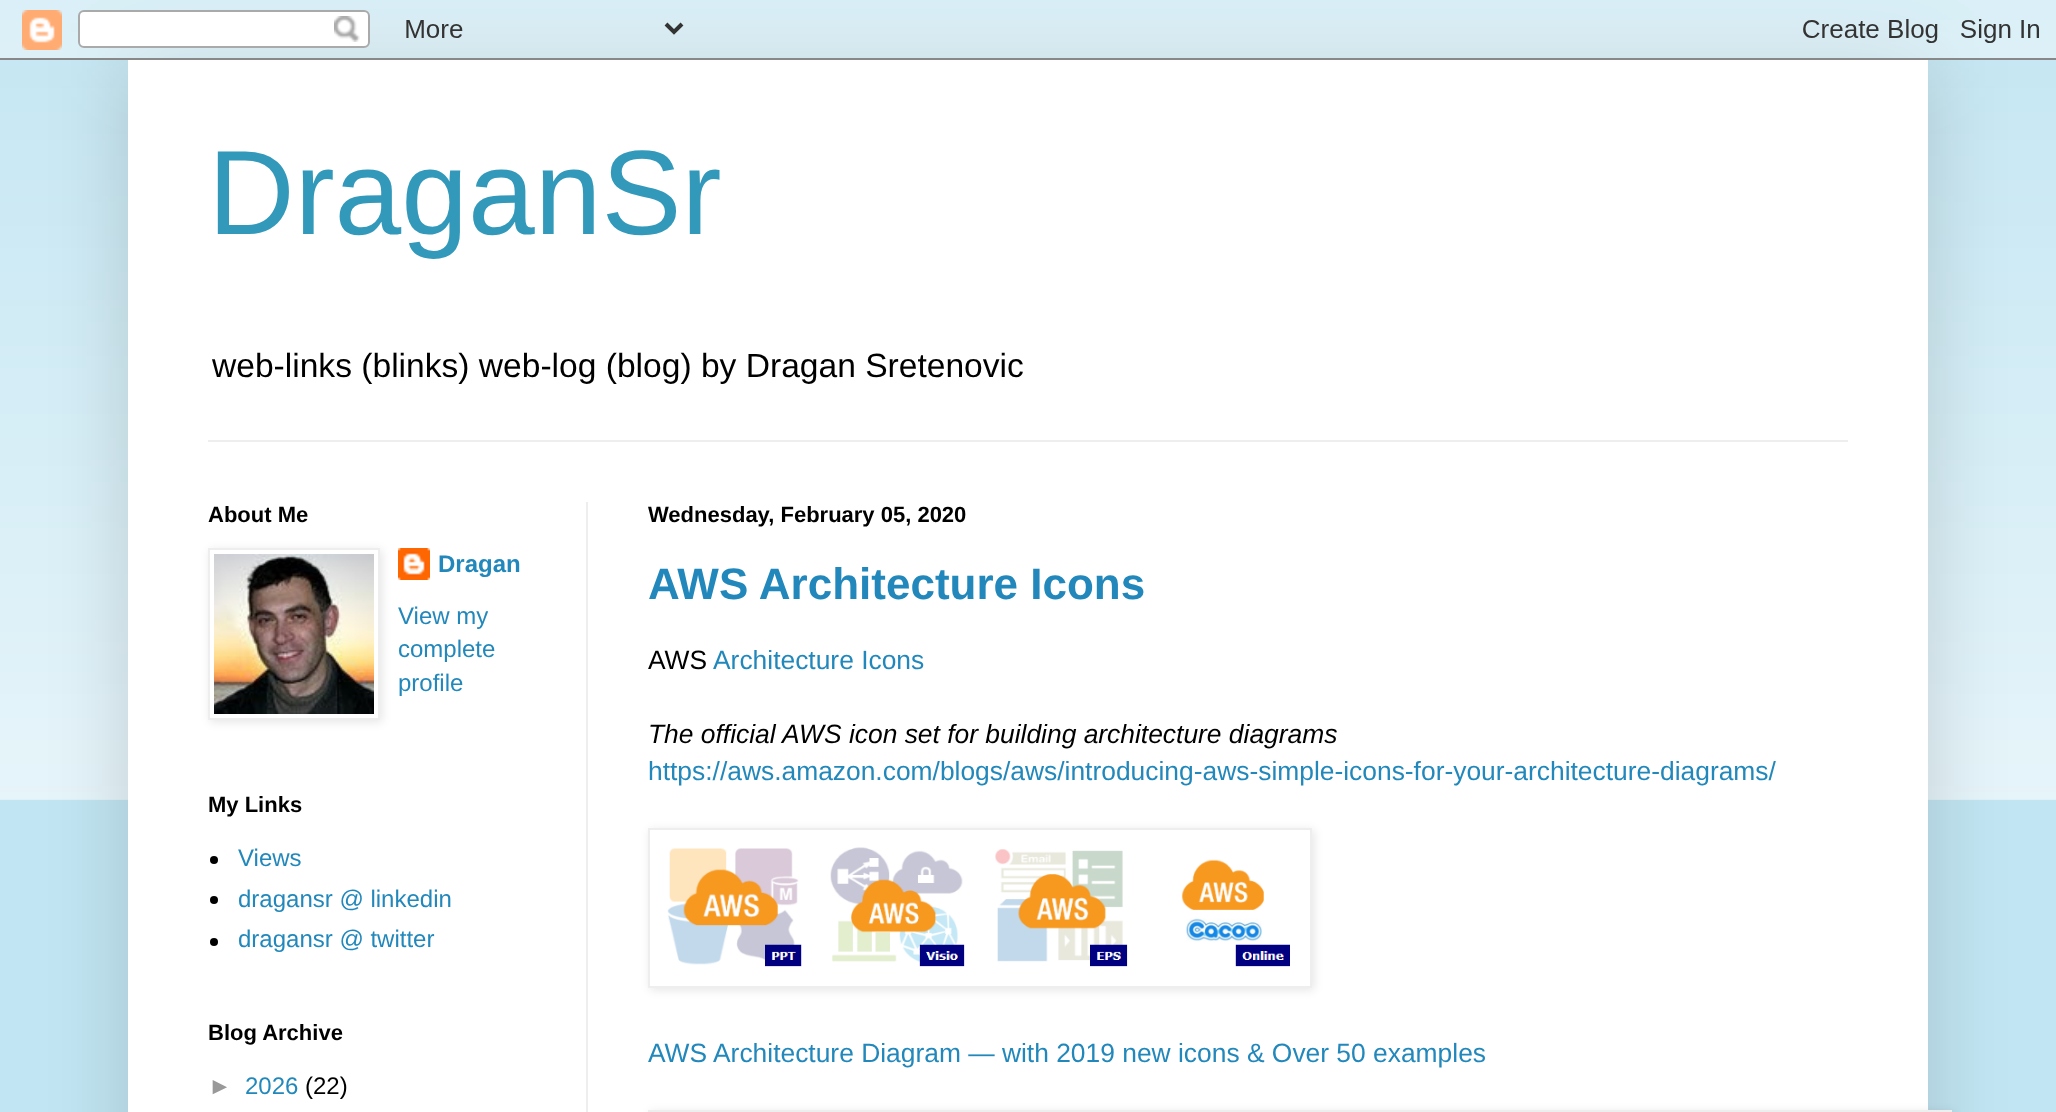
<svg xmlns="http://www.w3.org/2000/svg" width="2056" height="1112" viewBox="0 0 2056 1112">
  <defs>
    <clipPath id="clip1"><path d="M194 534H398V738H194ZM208 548H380V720H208Z" clip-rule="evenodd"/></clipPath>
    <clipPath id="clip2"><path d="M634 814H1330V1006H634ZM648 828H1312V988H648Z" clip-rule="evenodd"/></clipPath>
  </defs>
  <rect width="100%" height="100%" fill="#c1e5f2"/>
  <image x="0" y="20" width="2056" height="780" href="img/2.png"/>
  <path d="M128 60h1800v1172H128z" fill="#00000026" filter="blur(40px)"/>
  <image x="0" y="0" width="2056" height="60" href="img/1.png"/>
  <path d="M128 60h1800v1052H128z" fill="#fff"/>
  <path d="M208 440h1640v2H208z" fill="#eee"/>
  <path d="M586 502h2v610H586z" fill="#eee"/>
  <g clip-path="url(#clip1)">
    <path d="M210 550h172v172H210z" fill="#0000001a" filter="blur(5px)"/>
  </g>
  <path d="M209 549h170v170H209z" fill="none" stroke="#eee" stroke-width="2"/>
  <image x="214" y="554" width="160" height="160" href="img/3.png"/>
  <image x="398" y="548" width="32" height="32" href="img/4.png"/>
  <circle cx="214" cy="860" r="4" fill="#000"/>
  <circle cx="214" cy="900" r="4" fill="#000"/>
  <circle cx="214" cy="942" r="4" fill="#000"/>
  <g clip-path="url(#clip2)">
    <path d="M650 830h664v160H650z" fill="#0000001a" filter="blur(5px)"/>
  </g>
  <path d="M649 829h662v158H649z" fill="none" stroke="#eee" stroke-width="2"/>
  <image x="667" y="847" width="623" height="120" href="img/5.png"/>
  <path d="M650 1112h1304v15H650z" fill="#0000001a" filter="blur(5px)"/>
  <path d="M649 1111h1302v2H649z" fill="none" stroke="#eee" stroke-width="2"/>
  <text x="208" y="234" font-family="Liberation Sans" font-size="120" fill="#39b">DraganSr</text>
  <text x="212" y="377" font-family="Liberation Sans" font-size="33.6" fill="#000">web-links (blinks) web-log (blog) by Dragan Sretenovic</text>
  <text x="208" y="522" font-family="Liberation Sans" font-size="22" font-weight="bold" fill="#000">About Me</text>
  <text x="438" y="572" font-family="Liberation Sans" font-size="24" font-weight="bold" fill="#28b">Dragan</text>
  <g font-family="Liberation Sans" font-size="24" fill="#28b">
    <text x="398" y="624">View my</text>
    <text x="398" y="657">complete</text>
    <text x="398" y="691">profile</text>
  </g>
  <text x="208" y="812" font-family="Liberation Sans" font-size="22" font-weight="bold" fill="#000">My Links</text>
  <g font-family="Liberation Sans" font-size="24" fill="#28b">
    <text x="238" y="866">Views</text>
    <text x="238" y="907">dragansr @ linkedin</text>
    <text x="238" y="947">dragansr @ twitter</text>
  </g>
  <text x="208" y="1040" font-family="Liberation Sans" font-size="22" font-weight="bold" fill="#000">Blog Archive</text>
  <text x="208" y="1094" font-family="Liberation Sans" font-size="24" fill="#999">►</text>
  <text x="245" y="1094" font-family="Liberation Sans" font-size="24" fill="#28b">2026</text>
  <text x="305" y="1094" font-family="Liberation Sans" font-size="24" fill="#000">(22)</text>
  <text x="648" y="522" font-family="Liberation Sans" font-size="22" font-weight="bold" fill="#000">Wednesday, February 05, 2020</text>
  <text x="648" y="599" font-family="Liberation Sans" font-size="44" font-weight="bold" fill="#28b">AWS Architecture Icons</text>
  <text x="648" y="669" font-family="Liberation Sans" font-size="26.4" fill="#000">AWS</text>
  <text x="713" y="669" font-family="Liberation Sans" font-size="26.4" fill="#28b">Architecture Icons</text>
  <text x="648" y="743" font-family="Liberation Sans" font-size="26.4" font-style="italic" fill="#000">The official AWS icon set for building architecture diagrams</text>
  <g font-family="Liberation Sans" font-size="26.4" fill="#28b">
    <text x="648" y="780">https://aws.amazon.com/blogs/aws/introducing-aws-simple-icons-for-your-architecture-diagrams/</text>
    <text x="648" y="1062">AWS Architecture Diagram — with 2019 new icons &amp; Over 50 examples</text>
  </g>
</svg>
